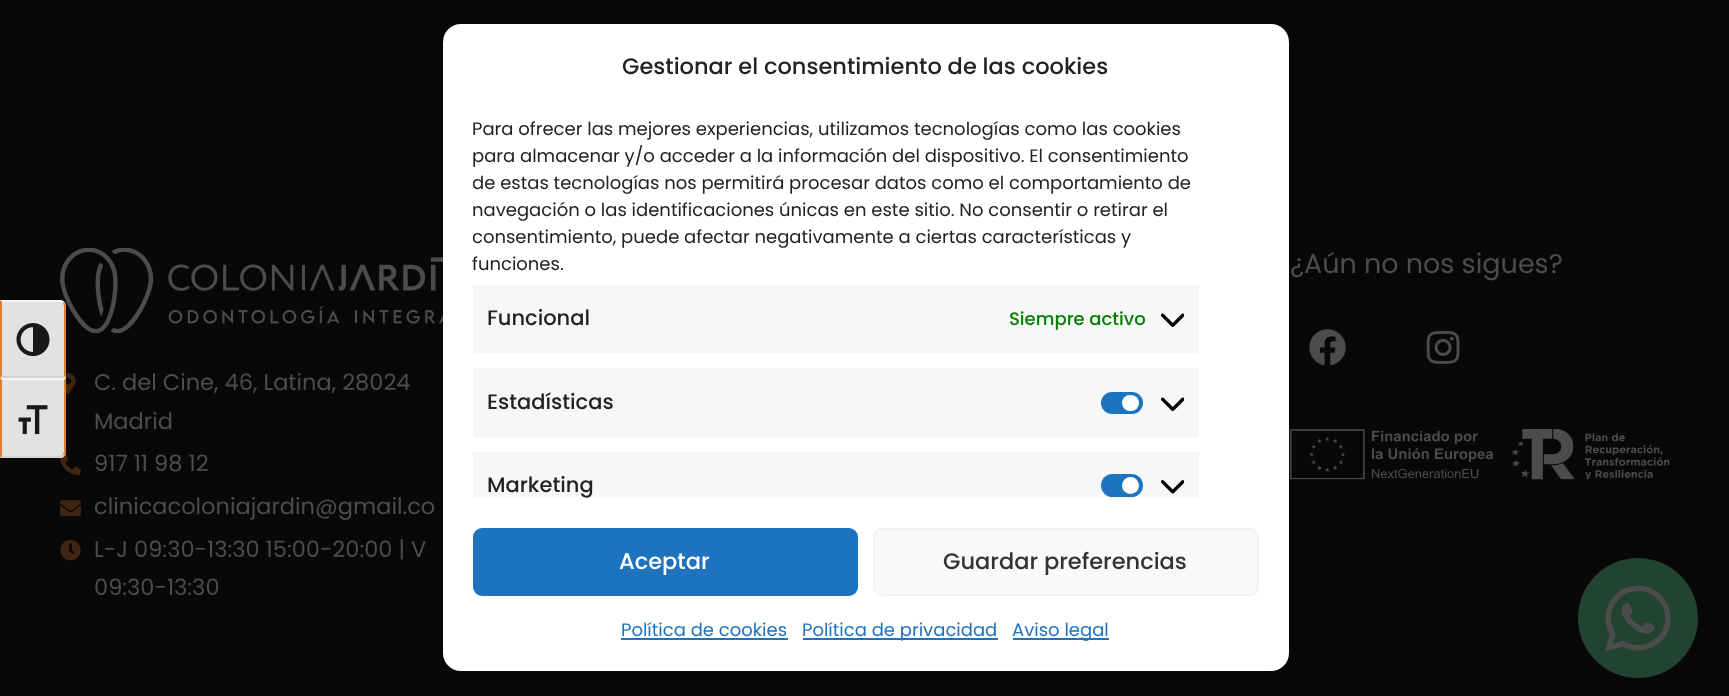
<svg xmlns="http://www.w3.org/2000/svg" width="1729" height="696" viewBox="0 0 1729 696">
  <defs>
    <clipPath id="clip1"><path d="M473 116h786v382H473z"/></clipPath>
  </defs>
  <rect width="100%" height="100%" fill="#080808"/>
  <rect x="443" y="24" width="846" height="647" rx="18" fill="#fff"/>
  <path d="M473 285h726v68H473z" fill="#f7f7f7"/>
  <image x="1161" y="313" width="23" height="14" href="img/1.png"/>
  <path d="M473 368h726v69H473z" fill="#f7f7f7"/>
  <rect x="1101" y="392" width="42" height="22" rx="11" fill="#1e73be"/>
  <rect x="1122" y="395" width="17" height="16" rx="8" fill="#fff"/>
  <image x="1161" y="397" width="23" height="14" href="img/1.png"/>
  <path d="M473 452h726v46H473z" fill="#f7f7f7"/>
  <rect x="1101" y="474" width="42" height="23" rx="11.5" fill="#1e73be"/>
  <circle cx="1130.5" cy="485.5" r="8.5" fill="#fff"/>
  <image x="1161" y="480" width="23" height="14" href="img/2.png"/>
  <rect x="474" y="529" width="383" height="66" rx="8" fill="#1e73be" stroke="#1e73be" stroke-width="2"/>
  <rect x="874" y="529" width="384" height="66" rx="8" fill="#f9f9f9" stroke="#f2f2f2" stroke-width="2"/>
  <path d="M621 638h167v2H621z" fill="#1e73be"/>
  <path d="M803 638h195v2H803z" fill="#1e73be"/>
  <path d="M1013 638h96v2H1013z" fill="#1e73be"/>
  <image x="60" y="248" width="383" height="85" href="img/9.png"/>
  <path d="M0 300H60C63.5 300 66 302.5 66 306V378H0Z" fill="#e2e2e2"/>
  <path d="M0 300L2 302H60L63 303L64 302C63 301 62 300 60 300Z" fill="#f5f5f5"/>
  <path d="M66 378V305L64 302L63 303L64 306V376Z" fill="#d68034"/>
  <path d="M66 378L64 376H2L0 378Z" fill="#d2d2d2"/>
  <path d="M2 302L0 300V378L2 376Z" fill="#d68034"/>
  <image x="16" y="323" width="34" height="34" href="img/3.png"/>
  <image x="60" y="454" width="21" height="22" href="img/11.png"/>
  <path d="M0 378H66V452C66 455.5 63.5 458 60 458H0Z" fill="#e2e2e2"/>
  <path d="M0 378L2 380H64L66 378Z" fill="#f5f5f5"/>
  <path d="M66 378L64 380V452L63 454L64 456C65 455 66 453 66 452Z" fill="#d68034"/>
  <path d="M62 458H0L2 456H60L63 454L64 456Z" fill="#d2d2d2"/>
  <path d="M2 380L0 378V458L2 456Z" fill="#d68034"/>
  <image x="18" y="405" width="30" height="30" href="img/4.png"/>
  <image x="1309" y="329" width="37" height="37" href="img/5.png"/>
  <image x="1426" y="331" width="34" height="33" href="img/6.png"/>
  <image x="1290" y="429" width="380" height="51" href="img/7.png"/>
  <circle cx="1638" cy="618" r="60" fill="#224232"/>
  <image x="1605" y="585" width="66" height="67" href="img/8.png"/>
  <image x="66" y="373" width="10" height="22" href="img/10.png"/>
  <image x="60" y="500" width="21" height="16" href="img/12.png"/>
  <image x="60" y="540" width="21" height="21" href="img/13.png"/>
  <text x="622" y="74" font-family="Poppins" font-size="22.5" font-weight="500" fill="#222">Gestionar el consentimiento de las cookies</text>
  <g font-family="Poppins" font-size="18" fill="#222">
    <text x="472" y="135">Para ofrecer las mejores experiencias, utilizamos tecnologías como las cookies</text>
    <text x="472" y="162">para almacenar y/o acceder a la información del dispositivo. El consentimiento</text>
  </g>
  <g clip-path="url(#clip1)">
    <text x="472" y="189" font-family="Poppins" font-size="18" fill="#222">de estas tecnologías nos permitirá procesar datos como el comportamiento de</text>
  </g>
  <text x="472" y="216" font-family="Poppins" font-size="18" fill="#222">navegación o las identificaciones únicas en este sitio. No consentir o retirar el</text>
  <g clip-path="url(#clip1)">
    <text x="472" y="243" font-family="Poppins" font-size="18" fill="#222">consentimiento, puede afectar negativamente a ciertas características y</text>
  </g>
  <text x="472" y="270" font-family="Poppins" font-size="18" fill="#222">funciones.</text>
  <text x="487" y="325" font-family="Poppins" font-size="21" font-weight="500" fill="#222">Funcional</text>
  <text x="1009" y="325" font-family="Poppins" font-size="18" font-weight="500" fill="#008000">Siempre activo</text>
  <g font-family="Poppins" font-size="21" font-weight="500" fill="#222">
    <text x="487" y="409">Estadísticas</text>
    <text x="487" y="492">Marketing</text>
  </g>
  <text x="619" y="569" font-family="Poppins" font-size="22.5" font-weight="500" fill="#fff">Aceptar</text>
  <text x="943" y="569" font-family="Poppins" font-size="22.5" font-weight="500" fill="#333">Guardar preferencias</text>
  <g font-family="Poppins" font-size="18" fill="#1e73be">
    <text x="621" y="636">Política de cookies</text>
    <text x="802" y="636">Política de privacidad</text>
    <text x="1012" y="636">Aviso legal</text>
  </g>
  <text x="1290" y="273" font-family="Poppins" font-size="27" fill="#4d4d4d">¿Aún no nos sigues?</text>
  <g font-family="Poppins" font-size="22.5" fill="#4d4d4d">
    <text x="94" y="390">C. del Cine, 46, Latina, 28024</text>
    <text x="94" y="429">Madrid</text>
    <text x="94" y="471">917 11 98 12</text>
    <text x="94" y="514">clinicacoloniajardin@gmail.co</text>
    <text x="94" y="557">L-J 09:30-13:30 15:00-20:00 | V</text>
    <text x="94" y="595">09:30-13:30</text>
  </g>
</svg>
